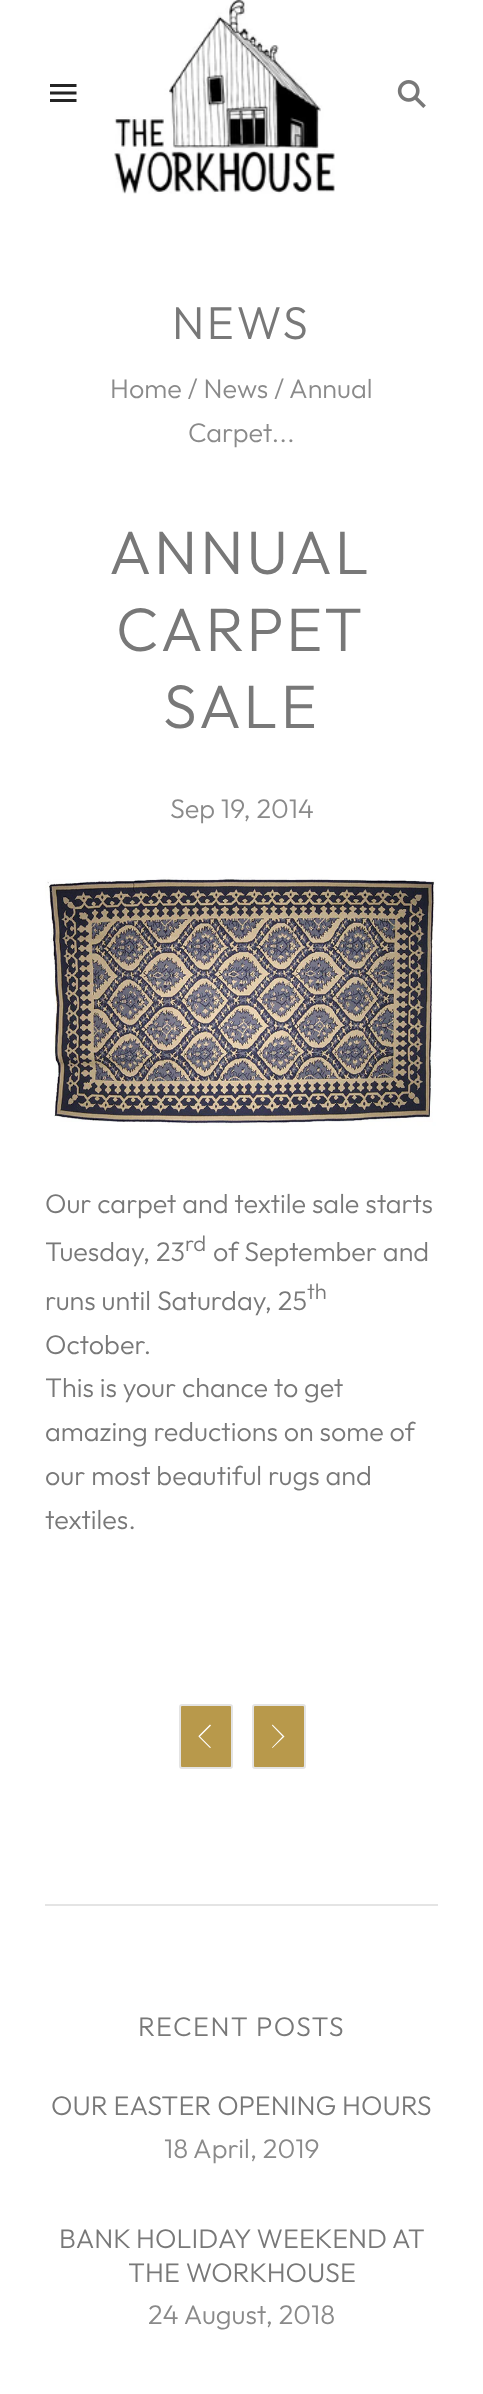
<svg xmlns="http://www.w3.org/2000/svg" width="483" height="2394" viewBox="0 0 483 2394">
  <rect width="100%" height="100%" fill="#fff"/>
  <image x="50" y="84" width="27" height="18" href="img/1.png"/>
  <image x="114" y="0" width="221" height="194" href="img/2.png"/>
  <image x="397" y="80" width="29" height="28" href="img/3.png"/>
  <path d="M45 1904h393v2H45z" fill="#e4e4e4"/>
  <image x="45" y="877" width="391" height="249" href="img/4.png"/>
  <rect x="180" y="1705" width="52" height="63" rx="2" fill="#b8994b" stroke="#e4e4e4" stroke-width="2"/>
  <path d="M198.5 1736V1736.5L210 1748L211 1747.5L199.5 1736V1737L211 1725.5L210 1724.5Z" fill="#fff"/>
  <rect x="253" y="1705" width="52" height="63" rx="2" fill="#b8994b" stroke="#e4e4e4" stroke-width="2"/>
  <path d="M284 1736L284.5 1736.5L272.5 1748L272 1747.5L283 1736V1737L272 1725.5L272.5 1724.5Z" fill="#fff"/>
  <text x="172" y="339" font-family="Outfit" font-size="46" font-weight="300" letter-spacing="2.5" fill="#787878">NEWS</text>
  <g font-family="Outfit" font-size="27" font-weight="300" fill="#8a8a8a">
    <text x="110" y="398">Home / News /</text>
    <text x="289" y="398">Annual</text>
    <text x="188" y="442">Carpet...</text>
  </g>
  <g font-family="Outfit" font-size="61.5" font-weight="300" letter-spacing="3" fill="#787878">
    <text x="109" y="574">ANNUAL</text>
    <text x="116" y="651">CARPET</text>
    <text x="163" y="728">SALE</text>
  </g>
  <text x="170" y="818" font-family="Outfit" font-size="27" font-weight="300" fill="#8a8a8a">Sep 19, 2014</text>
  <g font-family="Outfit" font-size="27" font-weight="300" fill="#787878">
    <text x="45" y="1213">Our carpet and textile sale starts</text>
    <text x="45" y="1261">Tuesday, 23</text>
  </g>
  <text x="185" y="1251" font-family="Outfit" font-size="22" font-weight="300" fill="#787878">rd</text>
  <g font-family="Outfit" font-size="27" font-weight="300" fill="#787878">
    <text x="213" y="1261">of September and</text>
    <text x="45" y="1310">runs until Saturday, 25</text>
  </g>
  <text x="307" y="1299" font-family="Outfit" font-size="22" font-weight="300" fill="#787878">th</text>
  <g font-family="Outfit" font-size="27" font-weight="300" fill="#787878">
    <text x="45" y="1354">October.</text>
    <text x="45" y="1397">This is your chance to get</text>
    <text x="45" y="1441">amazing reductions on some of</text>
    <text x="45" y="1485">our most beautiful rugs and</text>
    <text x="45" y="1529">textiles.</text>
  </g>
  <text x="138" y="2036" font-family="Outfit" font-size="27" font-weight="300" letter-spacing="1.4" fill="#787878">RECENT POSTS</text>
  <text x="51" y="2115" font-family="Outfit" font-size="27" font-weight="300" fill="#787878">OUR EASTER OPENING HOURS</text>
  <text x="164" y="2158" font-family="Outfit" font-size="27" font-weight="300" fill="#8a8a8a">18 April, 2019</text>
  <g font-family="Outfit" font-size="27" font-weight="300" fill="#787878">
    <text x="59" y="2248">BANK HOLIDAY WEEKEND AT</text>
    <text x="128" y="2282">THE WORKHOUSE</text>
  </g>
  <text x="148" y="2324" font-family="Outfit" font-size="27" font-weight="300" fill="#8a8a8a">24 August, 2018</text>
</svg>
